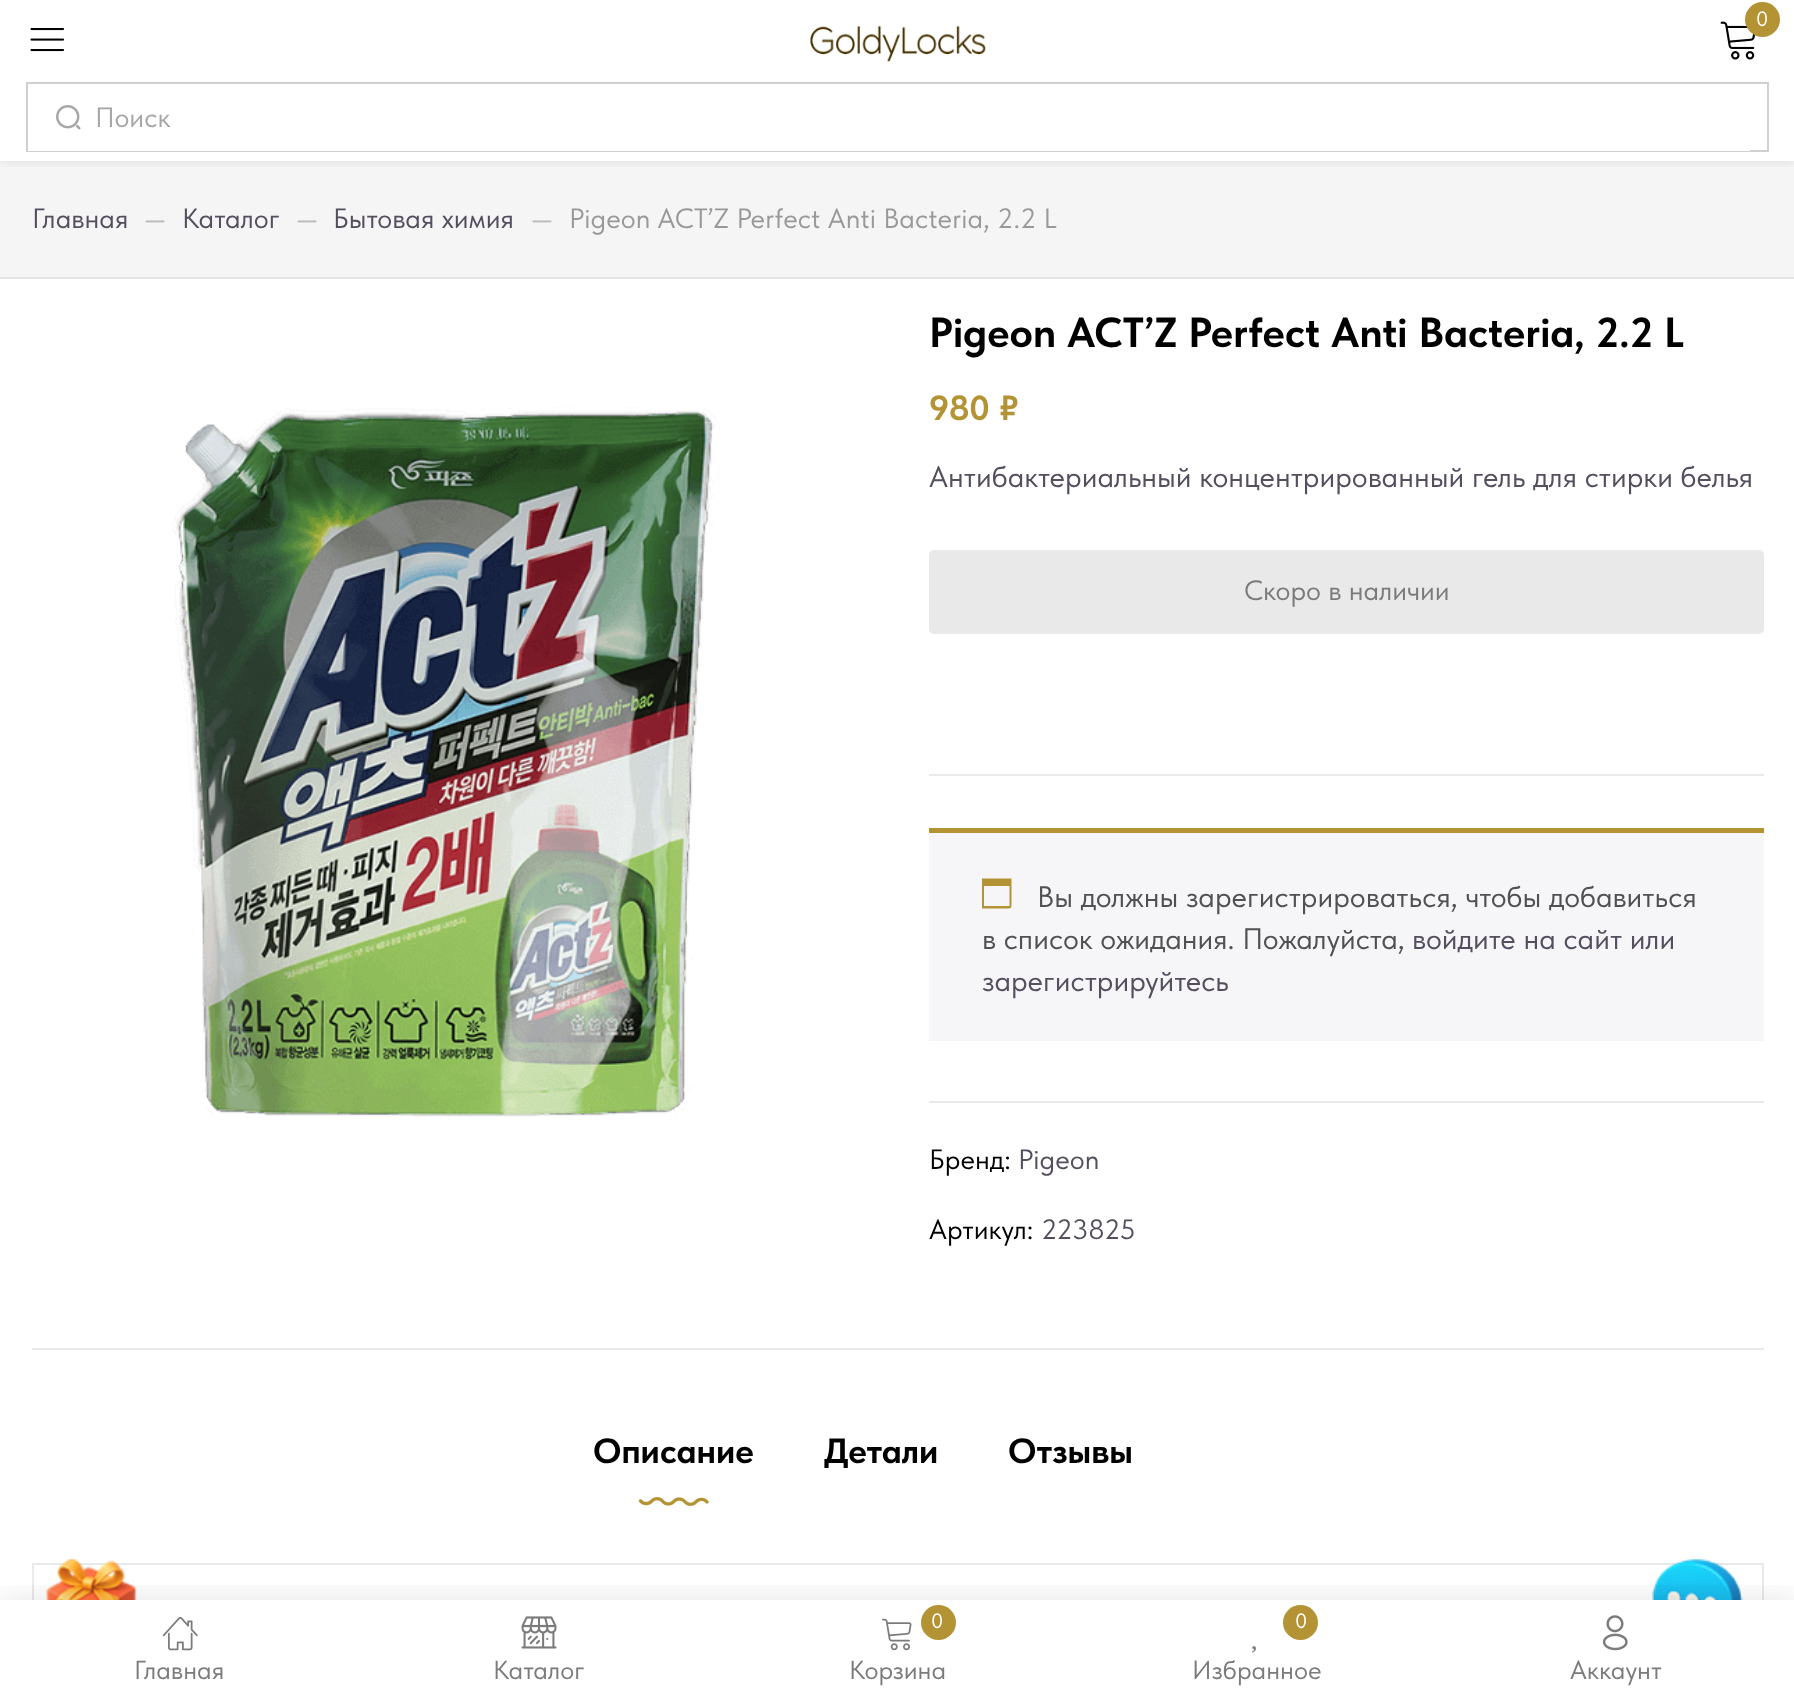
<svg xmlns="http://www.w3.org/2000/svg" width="1794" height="1700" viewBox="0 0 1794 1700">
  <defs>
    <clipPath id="clip1"><path d="M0 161h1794v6H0z"/></clipPath>
    <clipPath id="clip2"><path d="M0 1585h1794v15H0z"/></clipPath>
  </defs>
  <rect width="100%" height="100%" fill="#fff"/>
  <path d="M0 161h1794v116H0z" fill="#f5f5f5"/>
  <g clip-path="url(#clip1)">
    <path d="M0 0h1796v161H0z" fill="#0000001a" filter="blur(7px)"/>
  </g>
  <image x="1720" y="21" width="35" height="39" href="img/1.png"/>
  <circle cx="1762.5" cy="19.5" r="17.5" fill="#b39334"/>
  <image x="30" y="28" width="35" height="24" href="img/2.png"/>
  <image x="810" y="25" width="176" height="37" href="img/3.png"/>
  <path d="M27 83h1741v68H27z" fill="none" stroke="#d0d0d0" stroke-width="2"/>
  <image x="56" y="105" width="25" height="25" href="img/4.png"/>
  <path d="M28 150h1722v1H28z" fill="#fff"/>
  <path d="M0 277h1794v2H0z" fill="#e5e5e5"/>
  <path d="M32 1348h1732v2H32z" fill="#e9e9e9"/>
  <image x="172" y="407" width="544" height="710" href="img/5.png"/>
  <rect x="929" y="550" width="835" height="84" rx="5" fill="#e9e9e9"/>
  <path d="M929 774h835v2H929z" fill="#e9e9e9"/>
  <path d="M929 833h835v208H929z" fill="#f6f5f8"/>
  <path d="M929 828h835v5H929z" fill="#b39334"/>
  <path d="M1009.5 886H984V906H1009.5ZM1011.5 878.5V901.5C1011.5 908.5 1012 908.5 1004.5 908.5H982V878.5Z" fill="#b39334"/>
  <path d="M929 1101h835v2H929z" fill="#e9e9e9"/>
  <image x="638" y="1497" width="71" height="9" href="img/6.png"/>
  <path d="M33 1564h1730v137H33z" fill="none" stroke="#e9e9e9" stroke-width="2"/>
  <path d="M32 1600h1732v100H32z" fill="#fff"/>
  <image x="46" y="1559" width="91" height="41" href="img/12.png"/>
  <image x="1652" y="1559" width="91" height="41" href="img/13.png"/>
  <g clip-path="url(#clip2)">
    <path d="M0 1600h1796v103H0z" fill="#0000001a" filter="blur(17.5px)"/>
  </g>
  <image x="162" y="1616" width="36" height="35" href="img/7.png"/>
  <image x="521" y="1616" width="36" height="33" href="img/8.png"/>
  <image x="882" y="1618" width="30" height="33" href="img/9.png"/>
  <circle cx="938.5" cy="1622.5" r="17.5" fill="#b39334"/>
  <circle cx="1300.5" cy="1622.5" r="17.5" fill="#b39334"/>
  <image x="1252" y="1646" width="4" height="7" href="img/10.png"/>
  <image x="1602" y="1615" width="26" height="36" href="img/11.png"/>
  <text x="1756" y="26" font-family="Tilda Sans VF" font-size="21" fill="#fff">0</text>
  <text x="95" y="127" font-family="Tilda Sans VF" font-size="28" fill="#a6a6a6">Поиск</text>
  <text x="32" y="228" font-family="Tilda Sans VF" font-size="28" fill="#544e5f">Главная</text>
  <text x="144" y="228" font-family="Tilda Sans VF" font-size="28" fill="#b9b9b9">—</text>
  <text x="182" y="228" font-family="Tilda Sans VF" font-size="28" fill="#544e5f">Каталог</text>
  <text x="296" y="228" font-family="Tilda Sans VF" font-size="28" fill="#b9b9b9">—</text>
  <text x="333" y="228" font-family="Tilda Sans VF" font-size="28" fill="#544e5f">Бытовая химия</text>
  <text x="531" y="228" font-family="Tilda Sans VF" font-size="28" fill="#b9b9b9">—</text>
  <text x="569" y="228" font-family="Tilda Sans VF" font-size="28" fill="#999">Pigeon ACT’Z Perfect Anti Bacteria, 2.2 L</text>
  <text x="929" y="347" font-family="Tilda Sans VF" font-size="42" font-weight="bold" fill="#000">Pigeon ACT’Z Perfect Anti Bacteria, 2.2 L</text>
  <text x="929" y="420" font-family="Tilda Sans VF" font-size="35" font-weight="bold" fill="#b39334">980 ₽</text>
  <text x="929" y="487" font-family="Tilda Sans VF" font-size="29.75" fill="#544e5f">Антибактериальный концентрированный гель для стирки белья</text>
  <text x="1244" y="600" font-family="Tilda Sans VF" font-size="28" fill="#7b7b7b">Скоро в наличии</text>
  <g font-family="Tilda Sans VF" font-size="29.75" fill="#515151">
    <text x="1037" y="907">Вы должны зарегистрироваться, чтобы добавиться</text>
    <text x="982" y="949">в список ожидания. Пожалуйста,</text>
  </g>
  <g font-family="Tilda Sans VF" font-size="29.75" fill="#544e5f">
    <text x="1412" y="949">войдите на сайт или</text>
    <text x="982" y="991">зарегистрируйтесь</text>
  </g>
  <text x="929" y="1169" font-family="Tilda Sans VF" font-size="28" fill="#000">Бренд:</text>
  <text x="1018" y="1169" font-family="Tilda Sans VF" font-size="28" fill="#544e5f">Pigeon</text>
  <text x="929" y="1239" font-family="Tilda Sans VF" font-size="28" fill="#000">Артикул:</text>
  <text x="1041" y="1239" font-family="Tilda Sans VF" font-size="28" fill="#544e5f">223825</text>
  <g font-family="Tilda Sans VF" font-size="35" font-weight="bold" fill="#000">
    <text x="593" y="1463">Описание</text>
    <text x="824" y="1463">Детали</text>
    <text x="1008" y="1463">Отзывы</text>
  </g>
  <g font-family="Tilda Sans VF" font-size="26.25" fill="#7b7b7b">
    <text x="134" y="1679">Главная</text>
    <text x="493" y="1679">Каталог</text>
  </g>
  <text x="931" y="1628" font-family="Tilda Sans VF" font-size="21" fill="#fff">0</text>
  <text x="849" y="1679" font-family="Tilda Sans VF" font-size="26.25" fill="#7b7b7b">Корзина</text>
  <text x="1295" y="1628" font-family="Tilda Sans VF" font-size="21" fill="#fff">0</text>
  <g font-family="Tilda Sans VF" font-size="26.25" fill="#7b7b7b">
    <text x="1192" y="1679">Избранное</text>
    <text x="1570" y="1679">Аккаунт</text>
  </g>
</svg>
